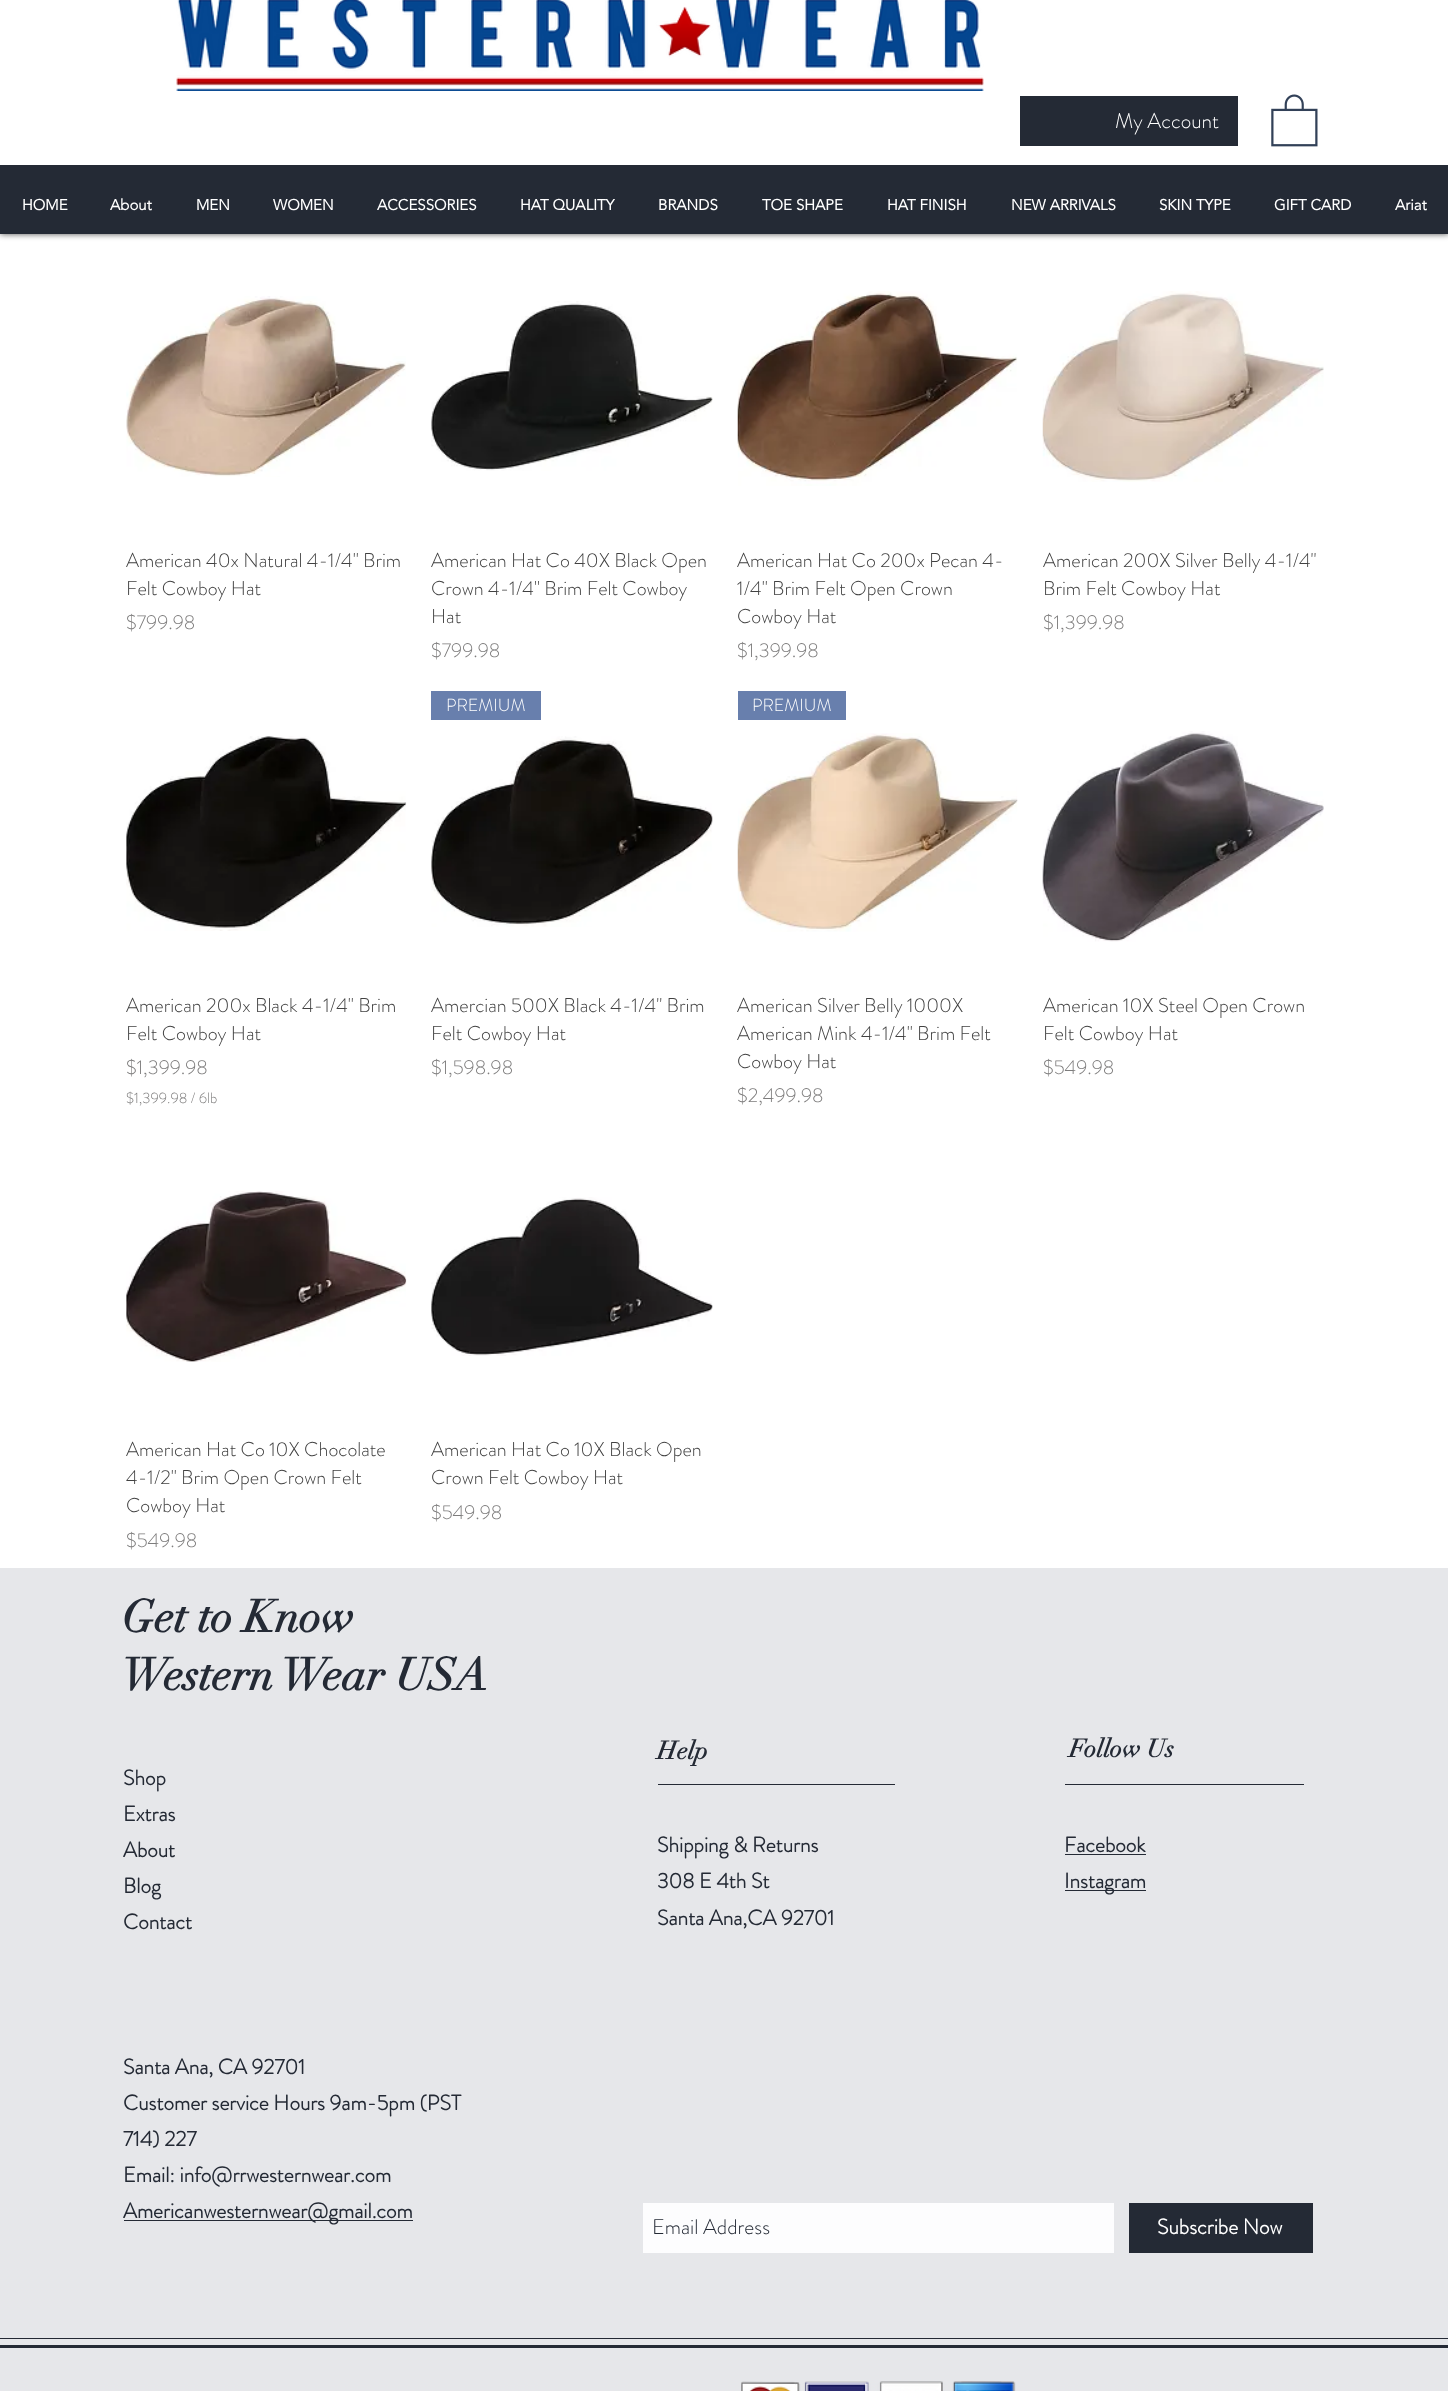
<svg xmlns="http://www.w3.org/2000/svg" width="1448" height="2391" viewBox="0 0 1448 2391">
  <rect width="100%" height="100%" fill="#fff"/>
  <path d="M0 -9h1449v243H0z" fill="#000000b3" filter="blur(3px)"/>
  <path d="M0 165h1448v69H0z" fill="#242a35"/>
  <path d="M0 0h1448v165H0z" fill="#fff"/>
  <image x="176" y="0" width="808" height="91" href="img/1.png"/>
  <path d="M1020 96h218v50H1020z" fill="#242a35"/>
  <image x="1271" y="94" width="47" height="53" href="img/2.png"/>
  <image x="126" y="296" width="280" height="181" href="img/3.png"/>
  <image x="431" y="301" width="282" height="170" href="img/4.png"/>
  <image x="737" y="291" width="281" height="195" href="img/5.png"/>
  <image x="1042" y="291" width="282" height="191" href="img/6.png"/>
  <image x="126" y="736" width="281" height="195" href="img/7.png"/>
  <path d="M431 691h110v29H431z" fill="#687fad"/>
  <image x="431" y="736" width="282" height="191" href="img/8.png"/>
  <path d="M738 691h108v29H738z" fill="#687fad"/>
  <image x="737" y="733" width="281" height="199" href="img/9.png"/>
  <image x="1042" y="731" width="282" height="211" href="img/10.png"/>
  <image x="126" y="1191" width="281" height="171" href="img/11.png"/>
  <image x="431" y="1197" width="282" height="159" href="img/12.png"/>
  <path d="M0 1568h1448v823H0z" fill="#e6e7ea"/>
  <path d="M124 2220h289v1H124z" fill="#242a35"/>
  <path d="M658 1784h237v1H658z" fill="#242a35"/>
  <path d="M1065 1784h239v1H1065z" fill="#242a35"/>
  <path d="M1065 1854h81v1H1065z" fill="#242a35"/>
  <path d="M1065 1890h81v1H1065z" fill="#242a35"/>
  <path d="M643 2203h471v50H643z" fill="#fdfdfe"/>
  <path d="M1129 2203h184v50H1129z" fill="#242a35"/>
  <path d="M0 2338h1448v1H0z" fill="#242a35"/>
  <path d="M0 2345h1448v3H0z" fill="#242a35"/>
  <image x="741" y="2381" width="275" height="10" href="img/13.png"/>
  <text x="1115" y="128" font-family="'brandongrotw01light'" font-size="21.25" font-weight="300" fill="#fff">My Account</text>
  <g font-family="'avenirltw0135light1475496'" font-size="15" font-weight="bold" fill="#fff">
    <text x="22" y="210">HOME</text>
    <text x="110" y="210">About</text>
    <text x="196" y="210">MEN</text>
    <text x="273" y="210">WOMEN</text>
    <text x="377" y="210">ACCESSORIES</text>
    <text x="520" y="210">HAT QUALITY</text>
    <text x="658" y="210">BRANDS</text>
    <text x="762" y="210">TOE SHAPE</text>
    <text x="887" y="210">HAT FINISH</text>
    <text x="1011" y="210">NEW ARRIVALS</text>
    <text x="1159" y="210">SKIN TYPE</text>
    <text x="1274" y="210">GIFT CARD</text>
    <text x="1395" y="210">Ariat</text>
  </g>
  <g font-family="'brandongrotw01light'" font-size="20" font-weight="300" fill="#414141">
    <text x="126" y="567">American 40x Natural 4-1/4" Brim</text>
    <text x="126" y="595">Felt Cowboy Hat</text>
  </g>
  <text x="126" y="629" font-family="'brandongrotw01light'" font-size="20" font-weight="300" fill="#7d7c7c">$799.98</text>
  <g font-family="'brandongrotw01light'" font-size="20" font-weight="300" fill="#414141">
    <text x="431" y="567">American Hat Co 40X Black Open</text>
    <text x="431" y="595">Crown 4-1/4" Brim Felt Cowboy</text>
    <text x="431" y="623">Hat</text>
  </g>
  <text x="431" y="657" font-family="'brandongrotw01light'" font-size="20" font-weight="300" fill="#7d7c7c">$799.98</text>
  <g font-family="'brandongrotw01light'" font-size="20" font-weight="300" fill="#414141">
    <text x="737" y="567">American Hat Co 200x Pecan 4-</text>
    <text x="737" y="595">1/4" Brim Felt Open Crown</text>
    <text x="737" y="623">Cowboy Hat</text>
  </g>
  <text x="737" y="657" font-family="'brandongrotw01light'" font-size="20" font-weight="300" fill="#7d7c7c">$1,399.98</text>
  <g font-family="'brandongrotw01light'" font-size="20" font-weight="300" fill="#414141">
    <text x="1043" y="567">American 200X Silver Belly 4-1/4"</text>
    <text x="1043" y="595">Brim Felt Cowboy Hat</text>
  </g>
  <text x="1043" y="629" font-family="'brandongrotw01light'" font-size="20" font-weight="300" fill="#7d7c7c">$1,399.98</text>
  <g font-family="'brandongrotw01light'" font-size="20" font-weight="300" fill="#414141">
    <text x="126" y="1012">American 200x Black 4-1/4" Brim</text>
    <text x="126" y="1040">Felt Cowboy Hat</text>
  </g>
  <text x="126" y="1074" font-family="'brandongrotw01light'" font-size="20" font-weight="300" fill="#7d7c7c">$1,399.98</text>
  <text x="126" y="1103" font-family="'brandongrotw01light'" font-size="15" font-weight="300" fill="#7d7c7c">$1,399.98 / 6lb</text>
  <text x="446" y="711" font-family="'brandongrotw01light'" font-size="17.5" font-weight="300" fill="#fff">PREMIUM</text>
  <g font-family="'brandongrotw01light'" font-size="20" font-weight="300" fill="#414141">
    <text x="431" y="1012">Amercian 500X Black 4-1/4" Brim</text>
    <text x="431" y="1040">Felt Cowboy Hat</text>
  </g>
  <text x="431" y="1074" font-family="'brandongrotw01light'" font-size="20" font-weight="300" fill="#7d7c7c">$1,598.98</text>
  <text x="752" y="711" font-family="'brandongrotw01light'" font-size="17.5" font-weight="300" fill="#fff">PREMIUM</text>
  <g font-family="'brandongrotw01light'" font-size="20" font-weight="300" fill="#414141">
    <text x="737" y="1012">American Silver Belly 1000X</text>
    <text x="737" y="1040">American Mink 4-1/4" Brim Felt</text>
    <text x="737" y="1068">Cowboy Hat</text>
  </g>
  <text x="737" y="1102" font-family="'brandongrotw01light'" font-size="20" font-weight="300" fill="#7d7c7c">$2,499.98</text>
  <g font-family="'brandongrotw01light'" font-size="20" font-weight="300" fill="#414141">
    <text x="1043" y="1012">American 10X Steel Open Crown</text>
    <text x="1043" y="1040">Felt Cowboy Hat</text>
  </g>
  <text x="1043" y="1074" font-family="'brandongrotw01light'" font-size="20" font-weight="300" fill="#7d7c7c">$549.98</text>
  <g font-family="'brandongrotw01light'" font-size="20" font-weight="300" fill="#414141">
    <text x="126" y="1456">American Hat Co 10X Chocolate</text>
    <text x="126" y="1484">4-1/2" Brim Open Crown Felt</text>
    <text x="126" y="1512">Cowboy Hat</text>
  </g>
  <text x="126" y="1547" font-family="'brandongrotw01light'" font-size="20" font-weight="300" fill="#7d7c7c">$549.98</text>
  <g font-family="'brandongrotw01light'" font-size="20" font-weight="300" fill="#414141">
    <text x="431" y="1456">American Hat Co 10X Black Open</text>
    <text x="431" y="1484">Crown Felt Cowboy Hat</text>
  </g>
  <text x="431" y="1519" font-family="'brandongrotw01light'" font-size="20" font-weight="300" fill="#7d7c7c">$549.98</text>
  <g font-family="didot" font-size="45" font-weight="bold" fill="#242a35">
    <text x="122" y="1632">Get to Know</text>
    <text x="122" y="1690">Western Wear USA</text>
  </g>
  <g font-family="didot" font-size="25" font-weight="bold" fill="#242a35">
    <text x="657" y="1759">Help</text>
    <text x="1069" y="1757">Follow Us</text>
  </g>
  <g font-family="'brandongrotw01light'" font-size="21.25" font-weight="bold" fill="#242a35">
    <text x="123" y="1785">Shop</text>
    <text x="123" y="1821">Extras</text>
    <text x="123" y="1857">About</text>
    <text x="123" y="1893">Blog</text>
    <text x="123" y="1929">Contact</text>
    <text x="123" y="2074">Santa Ana, CA 92701</text>
    <text x="123" y="2110">Customer service Hours 9am-5pm (PST</text>
    <text x="123" y="2146">714) 227</text>
    <text x="123" y="2182">Email: info@rrwesternwear.com</text>
    <text x="123" y="2218">Americanwesternwear@gmail.com</text>
    <text x="657" y="1852">Shipping &amp; Returns</text>
    <text x="657" y="1888">308 E 4th St</text>
    <text x="657" y="1925">Santa Ana,CA 92701</text>
    <text x="1064" y="1852">Facebook</text>
    <text x="1064" y="1888">Instagram</text>
  </g>
  <text x="652" y="2234" font-family="'brandongrotw01light'" font-size="21.25" font-weight="300" fill="#242a35">Email Address</text>
  <text x="1157" y="2234" font-family="'brandongrotw01light'" font-size="21.25" font-weight="bold" fill="#fff">Subscribe Now</text>
</svg>
